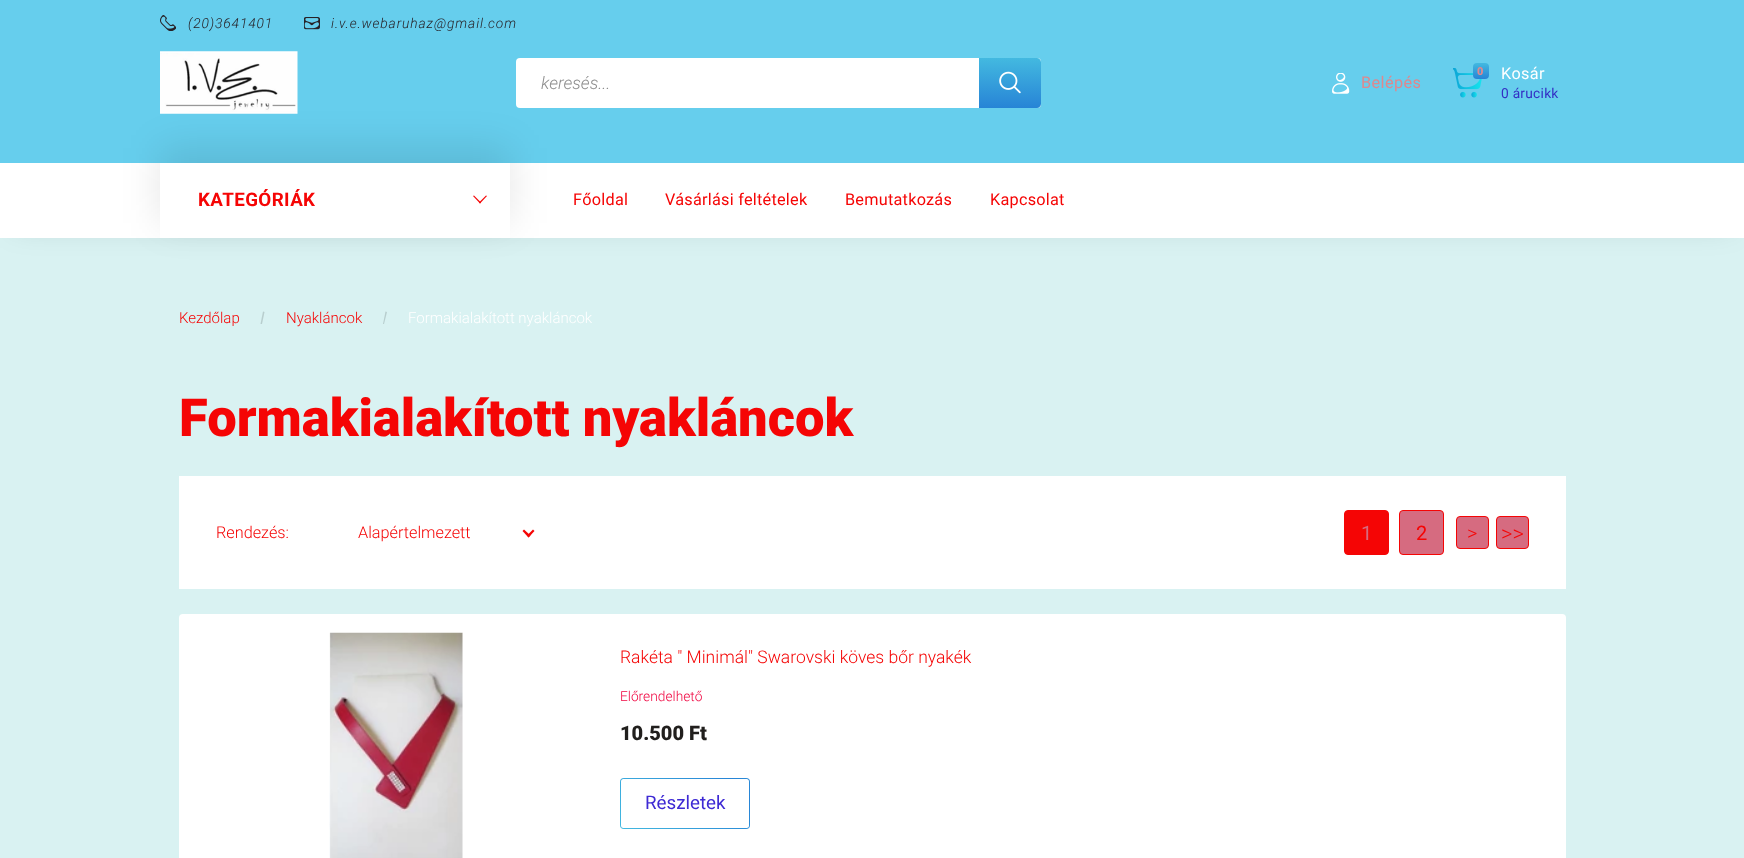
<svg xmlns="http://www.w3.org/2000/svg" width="1744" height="858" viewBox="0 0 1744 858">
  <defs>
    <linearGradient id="g1" gradientUnits="userSpaceOnUse" x1="1010" y1="58" x2="1010" y2="108"><stop offset="0" stop-color="#43b9e0"/><stop offset="1" stop-color="#2784d6"/></linearGradient>
    <linearGradient id="g2" gradientUnits="userSpaceOnUse" x1="1481" y1="63" x2="1481" y2="79"><stop offset="0" stop-color="#43b9e0"/><stop offset="1" stop-color="#2784d6"/></linearGradient>
    <clipPath id="clip1"><path d="M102 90H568V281H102ZM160 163H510V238H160Z" clip-rule="evenodd"/></clipPath>
    <linearGradient id="g3" gradientUnits="userSpaceOnUse" x1="661" y1="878" x2="839" y2="729"><stop offset="0" stop-color="#43b9e0"/><stop offset="0.51" stop-color="#2784d6"/><stop offset="1" stop-color="#43b9e0"/></linearGradient>
  </defs>
  <rect width="100%" height="100%" fill="#d9f2f2"/>
  <path d="M13 13h1720v212H13z" fill="#00000026" filter="blur(15.5px)"/>
  <path d="M0 0h1744v163H0z" fill="#66ceed"/>
  <image x="160" y="15" width="16" height="16" href="img/1.png"/>
  <image x="304" y="17" width="16" height="13" href="img/2.png"/>
  <image x="160" y="51" width="138" height="63" href="img/3.png"/>
  <rect x="516" y="58" width="525" height="50" rx="4" fill="#fff"/>
  <path d="M979 58H1037C1039 58 1041 60 1041 62V104C1041 106 1039 108 1037 108H979Z" fill="url(#g1)"/>
  <image x="999" y="71" width="22" height="23" href="img/4.png"/>
  <image x="1332" y="73" width="18" height="21" href="img/5.png"/>
  <image x="1453" y="68" width="29" height="30" href="img/6.png"/>
  <rect x="1473" y="63" width="16" height="16" rx="4" fill="url(#g2)"/>
  <path d="M0 163h1744v75H0z" fill="#fff"/>
  <g clip-path="url(#clip1)">
    <path d="M160 148h350v75H160z" fill="#0000001a" filter="blur(19px)"/>
  </g>
  <path d="M486 195.5L487 196L480 203.5L479 202.5Z" fill="#f50505"/>
  <path d="M474 195.5L481 202.5L480 203.5L473 196Z" fill="#f50505"/>
  <path d="M263 311.5L264.5 312L262 324H260.5Z" fill="#b8cece"/>
  <path d="M385.5 311.5L387 312L384 324H383Z" fill="#b8cece"/>
  <path d="M179 476h1387v113H179z" fill="#fff"/>
  <path d="M533 529.5L534.5 531L528.5 537.5L527 535.5Z" fill="#f50505"/>
  <path d="M524 529.5L530.5 535.5L528.5 537.5L522.5 531Z" fill="#f50505"/>
  <rect x="1344.5" y="510.5" width="44" height="44" rx="3.5" fill="#f50505" stroke="#f50505"/>
  <rect x="1399.5" y="510.5" width="44" height="44" rx="3.5" fill="#d66b80" stroke="#f50505"/>
  <rect x="1456.5" y="516.5" width="32" height="32" rx="3.5" fill="#d66b80" stroke="#f50505"/>
  <rect x="1496.5" y="516.5" width="32" height="32" rx="3.5" fill="#d66b80" stroke="#f50505"/>
  <rect x="179" y="614" width="1387" height="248" rx="4" fill="#fff"/>
  <image x="329" y="632" width="134" height="226" href="img/7.png"/>
  <rect x="620" y="778" width="130" height="51" rx="4" fill="url(#g3)"/>
  <rect x="621" y="779" width="128" height="49" rx="2.5" fill="#fff"/>
  <g font-family="Roboto" font-size="13.75" font-weight="300" font-style="italic" letter-spacing="0.9" fill="#262126">
    <text x="188" y="28">(20)3641401</text>
    <text x="331" y="28">i.v.e.webaruhaz@gmail.com</text>
  </g>
  <text x="541" y="89" font-family="Roboto" font-size="17.5" font-weight="300" font-style="italic" fill="#8e8e8e">keresés...</text>
  <text x="1361" y="88" font-family="Roboto" font-size="16.25" letter-spacing="0.4" fill="#de888e">Belépés</text>
  <text x="1477" y="75" font-family="Roboto" font-size="11" font-weight="900" letter-spacing="0.25" fill="#de888e">0</text>
  <text x="1501" y="79" font-family="Roboto" font-size="16.25" letter-spacing="0.4" fill="#fff">Kosár</text>
  <text x="1501" y="98" font-family="Roboto" font-size="13.75" letter-spacing="0.25" fill="#342fc4">0 árucikk</text>
  <text x="198" y="206" font-family="Roboto" font-size="18.75" font-weight="bold" letter-spacing="0.4" fill="#f50505">KATEGÓRIÁK</text>
  <g font-family="Roboto" font-size="16.25" letter-spacing="0.25" fill="#f50505">
    <text x="573" y="205">Főoldal</text>
    <text x="665" y="205">Vásárlási feltételek</text>
    <text x="845" y="205">Bemutatkozás</text>
    <text x="990" y="205">Kapcsolat</text>
  </g>
  <g font-family="Roboto" font-size="15" font-weight="300" fill="#f50505">
    <text x="179" y="323">Kezdőlap</text>
    <text x="286" y="323">Nyakláncok</text>
  </g>
  <text x="408" y="323" font-family="Roboto" font-size="15" font-weight="300" fill="#fff">Formakialakított nyakláncok</text>
  <text x="179" y="436" font-family="Roboto" font-size="52.5" font-weight="900" fill="#f50505">Formakialakított nyakláncok</text>
  <g font-family="Roboto" font-size="16.25" font-weight="300" fill="#f50505">
    <text x="216" y="538">Rendezés:</text>
    <text x="358" y="538">Alapértelmezett</text>
  </g>
  <text x="1361" y="540" font-family="Roboto" font-size="20" fill="#d66b80">1</text>
  <text x="1416" y="540" font-family="Roboto" font-size="20" fill="#f50505">2</text>
  <text x="1467" y="540" font-family="Roboto" font-size="20" font-weight="300" fill="#f50505">&gt;</text>
  <text x="1501" y="541" font-family="Roboto" font-size="22" font-weight="300" fill="#f50505">&gt;&gt;</text>
  <text x="620" y="663" font-family="Roboto" font-size="17.5" font-weight="300" fill="#f50505">Rakéta " Minimál" Swarovski köves bőr nyakék</text>
  <text x="620" y="701" font-family="Roboto" font-size="13.75" font-weight="300" fill="#f00540">Előrendelhető</text>
  <text x="620" y="740" font-family="Roboto" font-size="20" font-weight="900" fill="#211f1d">10.500 Ft</text>
  <text x="645" y="809" font-family="Roboto" font-size="18.75" fill="#3e2ad4">Részletek</text>
</svg>
